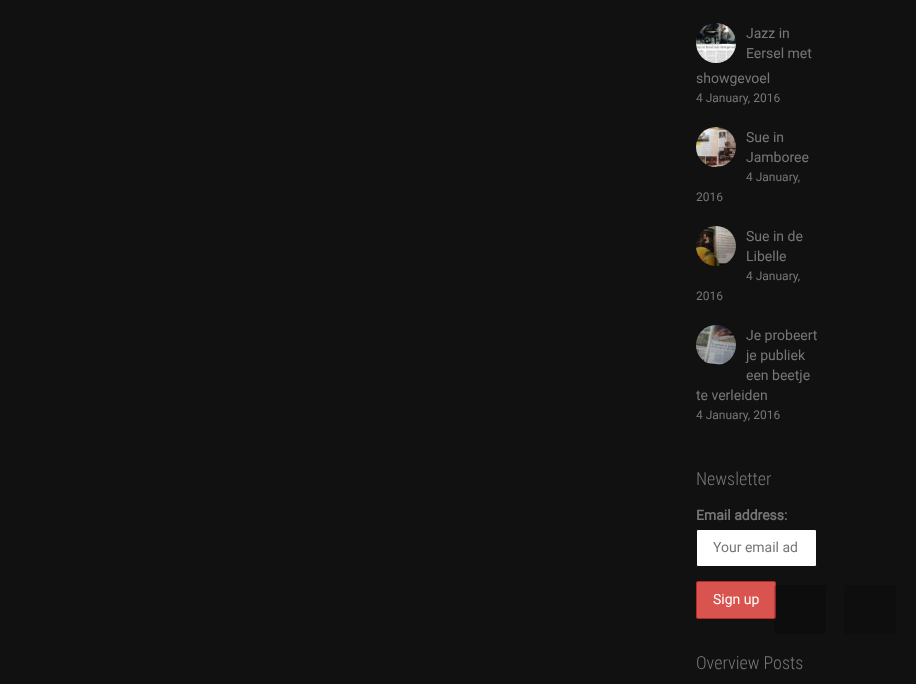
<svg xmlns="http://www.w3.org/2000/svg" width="916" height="684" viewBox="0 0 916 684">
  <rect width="100%" height="100%" fill="#111"/>
  <image x="696" y="23" width="40" height="40" href="img/1.png"/>
  <image x="696" y="127" width="40" height="40" href="img/2.png"/>
  <image x="696" y="226" width="40" height="40" href="img/3.png"/>
  <image x="696" y="325" width="40" height="40" href="img/4.png"/>
  <rect x="696.5" y="529.5" width="120" height="37" rx="1.5" fill="#fff" stroke="#111"/>
  <rect x="696.5" y="581.5" width="79" height="37" rx="1.5" fill="#d9534f" stroke="#b52b27"/>
  <rect x="774" y="585" width="52" height="49" rx="3" fill="#00000033"/>
  <rect x="844" y="585" width="52" height="49" rx="3" fill="#0e0e0e"/>
  <g font-family="Roboto" font-size="14" fill="#777">
    <text x="746" y="38">Jazz in</text>
    <text x="746" y="58">Eersel met</text>
    <text x="696" y="83">showgevoel</text>
  </g>
  <text x="696" y="102" font-family="Roboto" font-size="12" fill="#777">4 January, 2016</text>
  <g font-family="Roboto" font-size="14" fill="#777">
    <text x="746" y="142">Sue in</text>
    <text x="746" y="162">Jamboree</text>
  </g>
  <g font-family="Roboto" font-size="12" fill="#777">
    <text x="746" y="181">4 January,</text>
    <text x="696" y="201">2016</text>
  </g>
  <g font-family="Roboto" font-size="14" fill="#777">
    <text x="746" y="241">Sue in de</text>
    <text x="746" y="261">Libelle</text>
  </g>
  <g font-family="Roboto" font-size="12" fill="#777">
    <text x="746" y="280">4 January,</text>
    <text x="696" y="300">2016</text>
  </g>
  <g font-family="Roboto" font-size="14" fill="#777">
    <text x="746" y="340">Je probeert</text>
    <text x="746" y="360">je publiek</text>
    <text x="746" y="380">een beetje</text>
    <text x="696" y="400">te verleiden</text>
  </g>
  <text x="696" y="419" font-family="Roboto" font-size="12" fill="#777">4 January, 2016</text>
  <text x="696" y="485" font-family="Roboto Condensed" font-size="18" font-weight="300" fill="#777">Newsletter</text>
  <text x="696" y="520" font-family="Roboto" font-size="14" font-weight="bold" fill="#777">Email address:</text>
  <text x="713" y="552" font-family="Roboto" font-size="14" fill="#777">Your email ad</text>
  <text x="713" y="604" font-family="Roboto" font-size="14" fill="#fff">Sign up</text>
  <text x="696" y="669" font-family="Roboto Condensed" font-size="18" font-weight="300" fill="#777">Overview Posts</text>
</svg>
